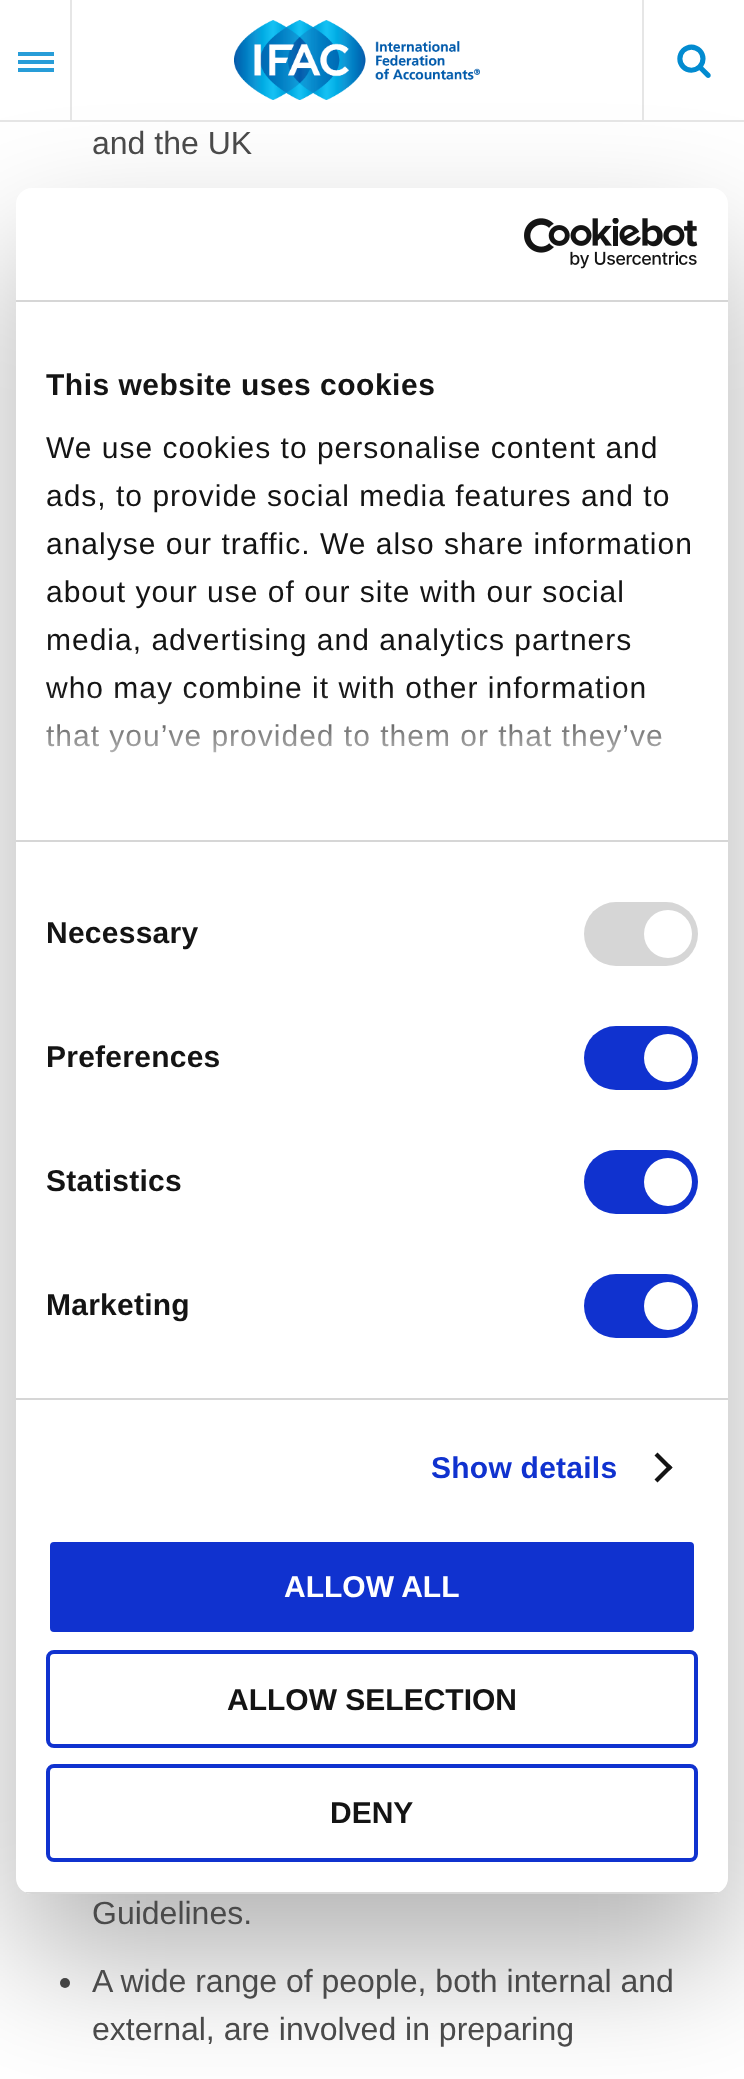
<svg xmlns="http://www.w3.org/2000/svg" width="744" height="2079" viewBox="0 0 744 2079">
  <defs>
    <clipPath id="clip1"><rect x="16" y="188" width="712" height="1706" rx="16"/></clipPath>
    <linearGradient id="g1" gradientUnits="userSpaceOnUse" x1="359" y1="840" x2="359" y2="690"><stop offset="0" stop-color="#fff"/><stop offset="0.5" stop-color="#fff" stop-opacity="0.8"/><stop offset="1" stop-color="#fff" stop-opacity="0"/></linearGradient>
  </defs>
  <rect width="100%" height="100%" fill="#fff"/>
  <path d="M0 120h744v2H0z" fill="#e6e6e6"/>
  <path d="M70 0h2v120H70z" fill="#e6e6e6"/>
  <path d="M18 52h36v4H18z" fill="#289dd8"/>
  <path d="M18 60h36v4H18z" fill="#289dd8"/>
  <path d="M18 68h36v4H18z" fill="#289dd8"/>
  <image x="234" y="20" width="246" height="80" href="img/1.png"/>
  <path d="M642 0h2v120H642z" fill="#e6e6e6"/>
  <image x="677" y="44" width="34" height="34" href="img/2.png"/>
  <circle cx="65" cy="1983" r="5" fill="#4a4a4a"/>
  <rect x="16" y="252" width="712" height="1706" rx="16" fill="#0000004d" filter="blur(68px)"/>
  <rect x="16" y="188" width="712" height="1706" rx="16" fill="#fff"/>
  <path d="M16 300h712v2H16z" fill="#d6d6d6"/>
  <image x="524" y="218" width="174" height="51" href="img/3.png"/>
  <path d="M16 840h712v2H16z" fill="#d6d6d6"/>
  <path d="M16 1398h712v2H16z" fill="#d6d6d6"/>
  <rect x="584" y="902" width="114" height="64" rx="32" fill="#d6d6d6"/>
  <circle cx="668" cy="934" r="24" fill="#fff"/>
  <rect x="584" y="1026" width="114" height="64" rx="32" fill="#1032cf"/>
  <circle cx="668" cy="1058" r="24" fill="#fff"/>
  <rect x="584" y="1150" width="114" height="64" rx="32" fill="#1032cf"/>
  <circle cx="668" cy="1182" r="24" fill="#fff"/>
  <rect x="584" y="1274" width="114" height="64" rx="32" fill="#1032cf"/>
  <circle cx="668" cy="1306" r="24" fill="#fff"/>
  <path d="M657.5 1452.5L672.5 1467.5L669.5 1470.5L654.5 1455.5Z" fill="#141414"/>
  <path d="M669.5 1464.5L672.5 1467.5L657.5 1482.5L654.5 1479.5Z" fill="#141414"/>
  <g clip-path="url(#clip1)">
    <path d="M16 1892h712v2H16z" fill="#d6d6d6"/>
  </g>
  <rect x="48" y="1540" width="648" height="94" rx="6" fill="#1032cf" stroke="#fff" stroke-width="4"/>
  <rect x="48" y="1652" width="648" height="94" rx="6" fill="none" stroke="#1032cf" stroke-width="4"/>
  <rect x="48" y="1766" width="648" height="94" rx="6" fill="none" stroke="#1032cf" stroke-width="4"/>
  <g font-family="Liberation Sans" font-size="32" fill="#4a4a4a">
    <text x="92" y="154">and the UK</text>
    <text x="92" y="1924">Guidelines.</text>
    <text x="92" y="1992">A wide range of people, both internal and</text>
    <text x="92" y="2040">external, are involved in preparing</text>
  </g>
  <text x="46" y="395" font-family="Liberation Sans" font-size="30" font-weight="bold" letter-spacing="0.5" fill="#141414">This website uses cookies</text>
  <g font-family="Liberation Sans" font-size="30" letter-spacing="1" fill="#141414">
    <text x="46" y="458">We use cookies to personalise content and</text>
    <text x="46" y="506">ads, to provide social media features and to</text>
    <text x="46" y="554">analyse our traffic. We also share information</text>
    <text x="46" y="602">about your use of our site with our social</text>
    <text x="46" y="650">media, advertising and analytics partners</text>
    <text x="46" y="698">who may combine it with other information</text>
    <text x="46" y="746">that you’ve provided to them or that they’ve</text>
  </g>
  <path d="M46 692h616v61H46z" fill="url(#g1)"/>
  <g font-family="Liberation Sans" font-size="30" font-weight="bold" letter-spacing="0.25" fill="#141414">
    <text x="46" y="943">Necessary</text>
    <text x="46" y="1067">Preferences</text>
    <text x="46" y="1191">Statistics</text>
    <text x="46" y="1315">Marketing</text>
  </g>
  <text x="431" y="1478" font-family="Liberation Sans" font-size="30" font-weight="bold" letter-spacing="0.25" fill="#1032cf">Show details</text>
  <text x="284" y="1597" font-family="Liberation Sans" font-size="30" font-weight="bold" fill="#fff">ALLOW ALL</text>
  <g font-family="Liberation Sans" font-size="30" font-weight="bold" fill="#141414">
    <text x="227" y="1710">ALLOW SELECTION</text>
    <text x="330" y="1823">DENY</text>
  </g>
</svg>
